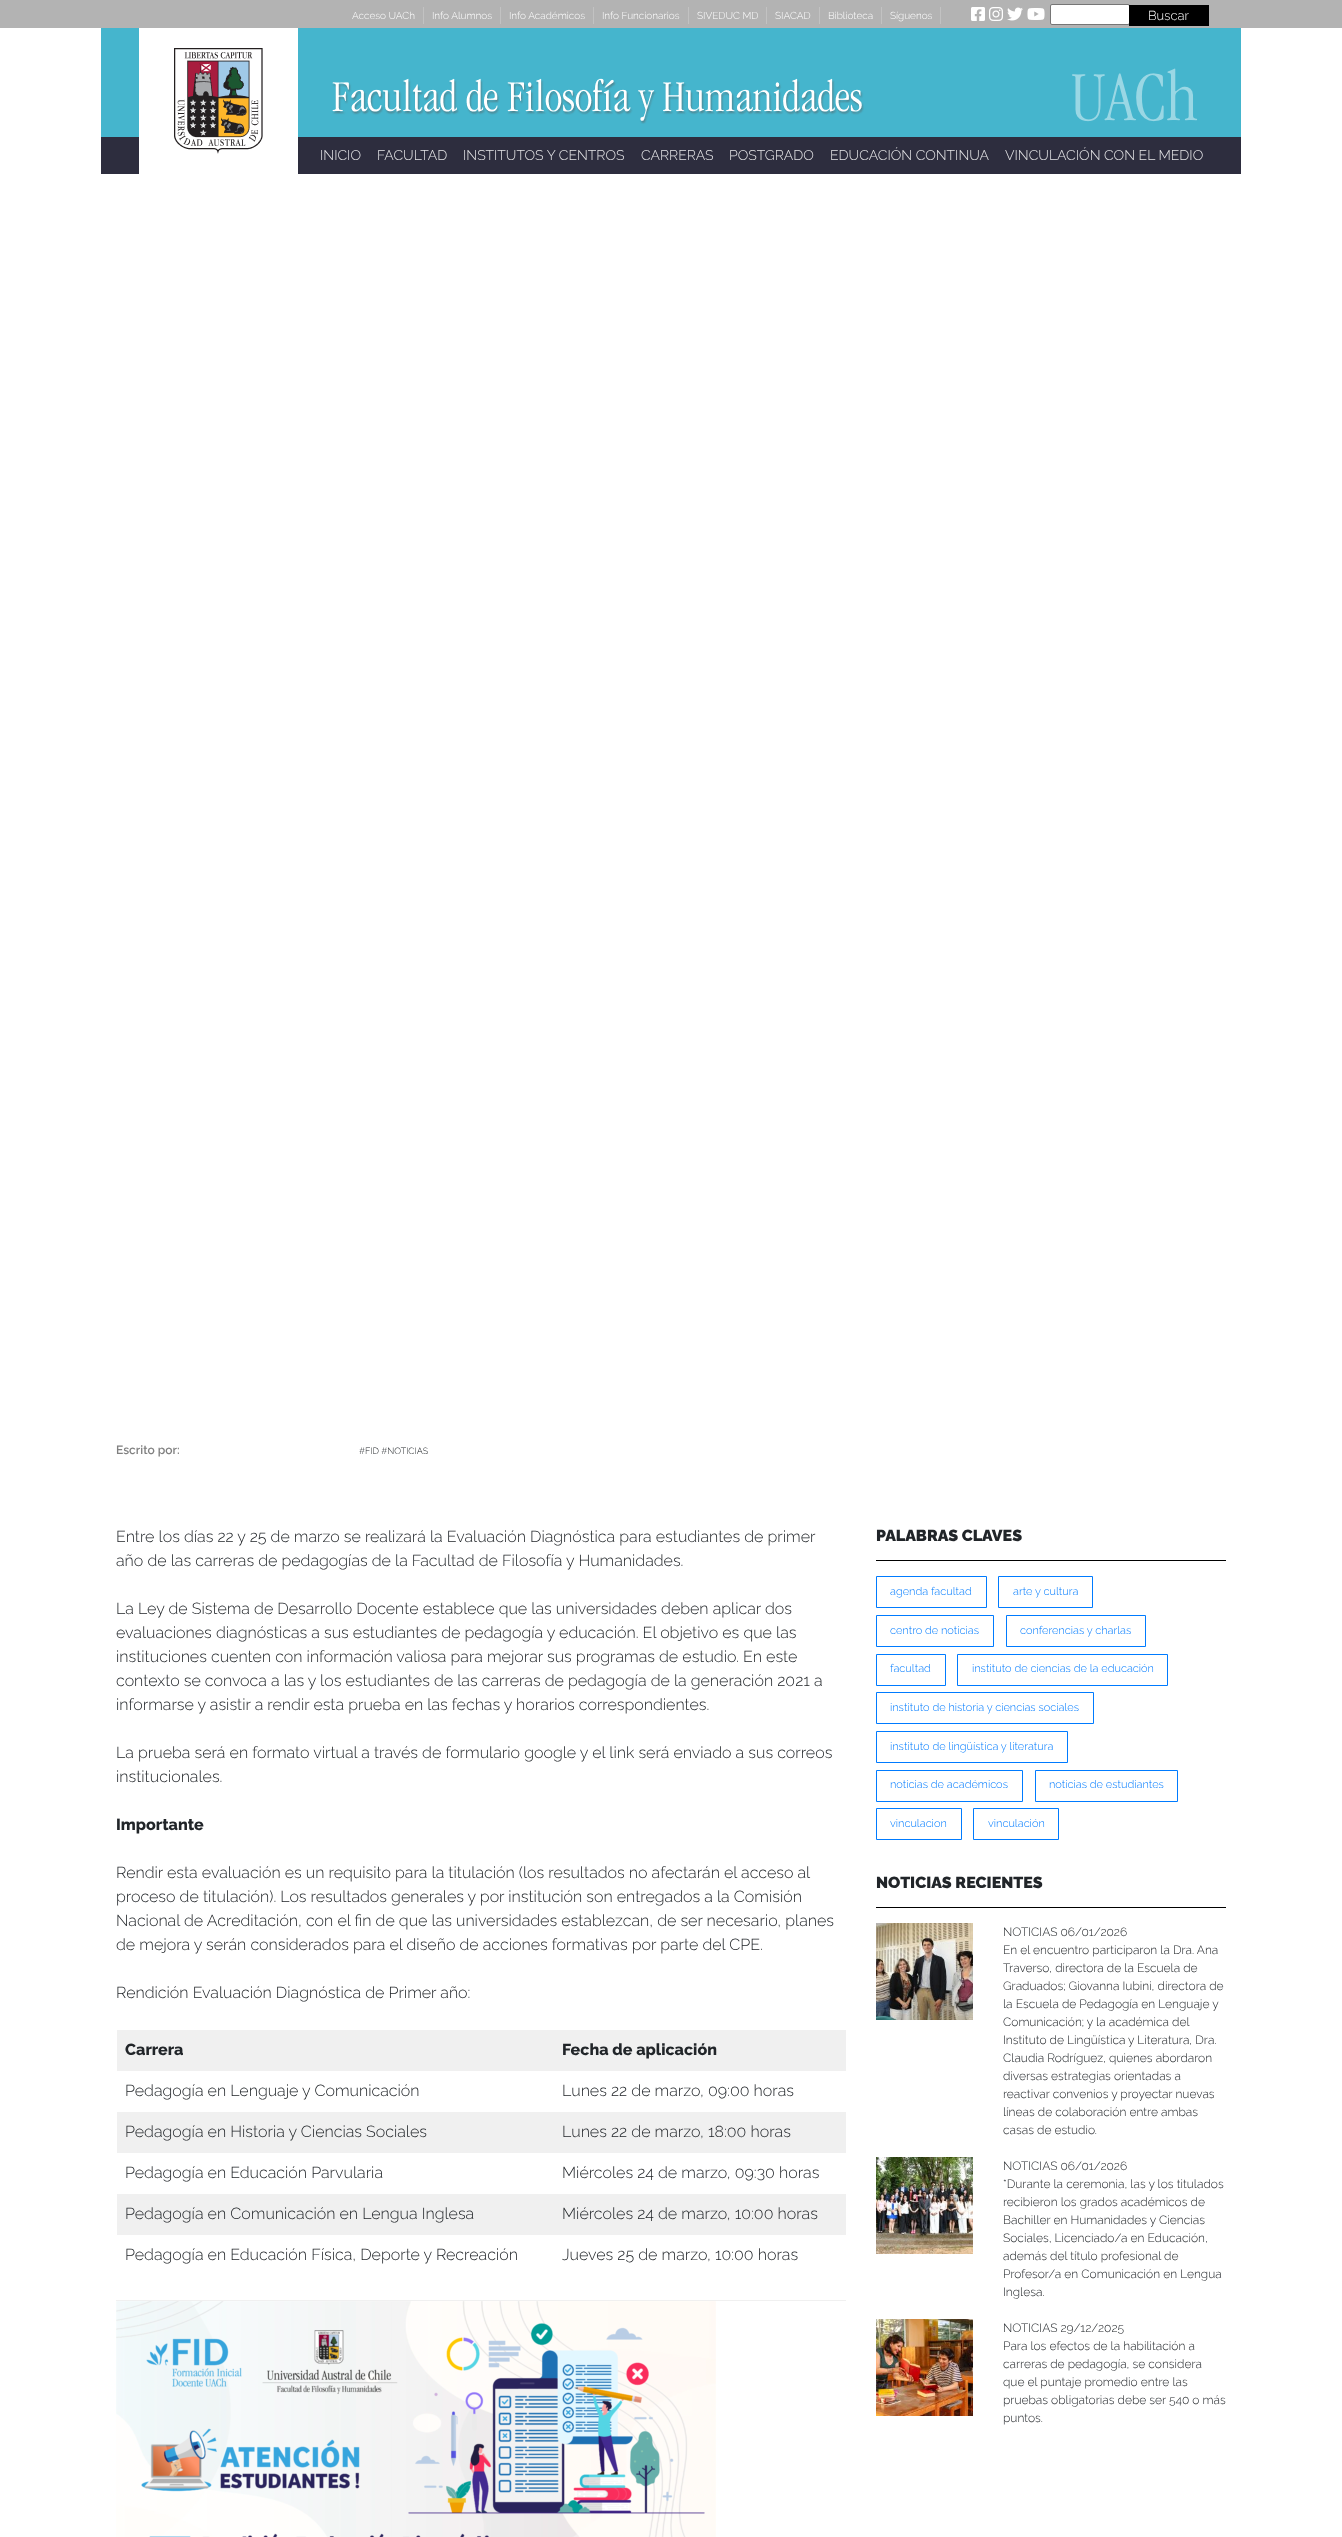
<svg xmlns="http://www.w3.org/2000/svg" width="1342" height="2537" viewBox="0 0 1342 2537">
  <rect width="100%" height="100%" fill="#fff"/>
  <path d="M0 0h1342v28H0z" fill="#b3b3b3"/>
  <path d="M423 7h1v17H423z" fill="#c2c2c2"/>
  <path d="M500 7h1v17H500z" fill="#c2c2c2"/>
  <path d="M593 7h1v17H593z" fill="#c2c2c2"/>
  <path d="M688 7h1v17H688z" fill="#c2c2c2"/>
  <path d="M766 7h1v17H766z" fill="#c2c2c2"/>
  <path d="M819 7h1v17H819z" fill="#c2c2c2"/>
  <path d="M881 7h1v17H881z" fill="#c2c2c2"/>
  <path d="M940 7h1v17H940z" fill="#c2c2c2"/>
  <image x="971" y="7" width="14" height="14" href="img/1.png"/>
  <image x="989" y="7" width="14" height="14" href="img/2.png"/>
  <image x="1007" y="7" width="16" height="14" href="img/3.png"/>
  <image x="1027" y="8" width="18" height="12" href="img/4.png"/>
  <rect x="1050.5" y="4.5" width="79" height="20" rx="1.5" fill="#fff" stroke="#767676"/>
  <path d="M1129 5h80v21H1129z" fill="#000"/>
  <path d="M101 28h1140v109H101z" fill="#45b5cd"/>
  <path d="M101 137h1140v37H101z" fill="#2d2d3e"/>
  <image x="139" y="28" width="159" height="146" href="img/5.png"/>
  <image x="332" y="78" width="532" height="46" href="img/6.png"/>
  <image x="1072" y="68" width="126" height="54" href="img/7.png"/>
  <path d="M116 2300h730v1H116z" fill="#f0f0f0"/>
  <path d="M117 2030h729v41H117z" fill="#f0f0f0"/>
  <path d="M117 2112h729v41H117z" fill="#f0f0f0"/>
  <path d="M117 2194h729v41H117z" fill="#f0f0f0"/>
  <image x="116" y="2301" width="600" height="236" href="img/8.png"/>
  <path d="M876 1560h350v1H876z" fill="#000"/>
  <path d="M876.5 1576.5h110v31H876.5z" fill="none" stroke="#007bff"/>
  <path d="M998.5 1576.5h94v31H998.5z" fill="none" stroke="#007bff"/>
  <path d="M876.5 1615.5h117v31H876.5z" fill="none" stroke="#007bff"/>
  <path d="M1006.5 1615.5h139v31H1006.5z" fill="none" stroke="#007bff"/>
  <path d="M876.5 1654.5h69v31H876.5z" fill="none" stroke="#007bff"/>
  <path d="M957.5 1654.5h210v31H957.5z" fill="none" stroke="#007bff"/>
  <path d="M876.5 1692.5h217v31H876.5z" fill="none" stroke="#007bff"/>
  <path d="M876.5 1731.5h191v31H876.5z" fill="none" stroke="#007bff"/>
  <path d="M876.5 1770.5h146v31H876.5z" fill="none" stroke="#007bff"/>
  <path d="M1035.5 1770.5h142v31H1035.5z" fill="none" stroke="#007bff"/>
  <path d="M876.5 1808.5h85v31H876.5z" fill="none" stroke="#007bff"/>
  <path d="M973.5 1808.5h85v31H973.5z" fill="none" stroke="#007bff"/>
  <path d="M876 1907h350v1H876z" fill="#000"/>
  <image x="876" y="1923" width="97" height="97" href="img/9.png"/>
  <image x="876" y="2157" width="97" height="97" href="img/10.png"/>
  <image x="876" y="2319" width="97" height="97" href="img/11.png"/>
  <g font-family="Raleway" font-size="10" font-weight="300" fill="#fff">
    <text x="352" y="19">Acceso UACh</text>
    <text x="432" y="19">Info Alumnos</text>
    <text x="509" y="19">Info Académicos</text>
    <text x="602" y="19">Info Funcionarios</text>
    <text x="697" y="19">SIVEDUC MD</text>
    <text x="775" y="19">SIACAD</text>
    <text x="828" y="19">Biblioteca</text>
    <text x="890" y="19">Síguenos</text>
  </g>
  <text x="1148" y="20" font-family="Raleway" font-size="13" font-weight="300" fill="#fff">Buscar</text>
  <g font-family="Raleway" font-size="14" font-weight="300" fill="#e5e5e7">
    <text x="320" y="160">INICIO</text>
    <text x="377" y="160">FACULTAD</text>
    <text x="463" y="160">INSTITUTOS Y CENTROS</text>
    <text x="641" y="160">CARRERAS</text>
    <text x="729" y="160">POSTGRADO</text>
    <text x="830" y="160">EDUCACIÓN CONTINUA</text>
    <text x="1005" y="160">VINCULACIÓN CON EL MEDIO</text>
  </g>
  <text x="116" y="1454" font-family="Raleway" font-size="12" font-weight="600" fill="#808080">Escrito por:</text>
  <text x="359" y="1454" font-family="Raleway" font-size="9" font-weight="300" fill="#212529">#FID #NOTICIAS</text>
  <g font-family="Raleway" font-size="16" font-weight="300" fill="#212529">
    <text x="116" y="1542">Entre los días 22 y 25 de marzo se realizará la Evaluación Diagnóstica para estudiantes de primer</text>
    <text x="116" y="1566">año de las carreras de pedagogías de la Facultad de Filosofía y Humanidades.</text>
    <text x="116" y="1614">La Ley de Sistema de Desarrollo Docente establece que las universidades deben aplicar dos</text>
    <text x="116" y="1638">evaluaciones diagnósticas a sus estudiantes de pedagogía y educación. El objetivo es que las</text>
    <text x="116" y="1662">instituciones cuenten con información valiosa para mejorar sus programas de estudio. En este</text>
    <text x="116" y="1686">contexto se convoca a las y los estudiantes de las carreras de pedagogía de la generación 2021 a</text>
    <text x="116" y="1710">informarse y asistir a rendir esta prueba en las fechas y horarios correspondientes.</text>
    <text x="116" y="1758">La prueba será en formato virtual a través de formulario google y el link será enviado a sus correos</text>
    <text x="116" y="1782">institucionales.</text>
  </g>
  <text x="116" y="1830" font-family="Raleway" font-size="16" font-weight="800" fill="#212529">Importante</text>
  <g font-family="Raleway" font-size="16" font-weight="300" fill="#212529">
    <text x="116" y="1878">Rendir esta evaluación es un requisito para la titulación (los resultados no afectarán el acceso al</text>
    <text x="116" y="1902">proceso de titulación). Los resultados generales y por institución son entregados a la Comisión</text>
    <text x="116" y="1926">Nacional de Acreditación, con el fin de que las universidades establezcan, de ser necesario, planes</text>
    <text x="116" y="1950">de mejora y serán considerados para el diseño de acciones formativas por parte del CPE.</text>
    <text x="116" y="1998">Rendición Evaluación Diagnóstica de Primer año:</text>
  </g>
  <g font-family="Raleway" font-size="16" font-weight="800" fill="#212529">
    <text x="125" y="2055">Carrera</text>
    <text x="562" y="2055">Fecha de aplicación</text>
  </g>
  <g font-family="Raleway" font-size="16" font-weight="300" fill="#212529">
    <text x="125" y="2096">Pedagogía en Lenguaje y Comunicación</text>
    <text x="562" y="2096">Lunes 22 de marzo, 09:00 horas</text>
    <text x="125" y="2137">Pedagogía en Historia y Ciencias Sociales</text>
    <text x="562" y="2137">Lunes 22 de marzo, 18:00 horas</text>
    <text x="125" y="2178">Pedagogía en Educación Parvularia</text>
    <text x="562" y="2178">Miércoles 24 de marzo, 09:30 horas</text>
    <text x="125" y="2219">Pedagogía en Comunicación en Lengua Inglesa</text>
    <text x="562" y="2219">Miércoles 24 de marzo, 10:00 horas</text>
    <text x="125" y="2260">Pedagogía en Educación Física, Deporte y Recreación</text>
    <text x="562" y="2260">Jueves 25 de marzo, 10:00 horas</text>
  </g>
  <text x="876" y="1541" font-family="Raleway" font-size="16" font-weight="900" fill="#212529">PALABRAS CLAVES</text>
  <g font-family="Raleway" font-size="11" font-weight="300" fill="#007bff">
    <text x="890" y="1595">agenda facultad</text>
    <text x="1013" y="1595">arte y cultura</text>
    <text x="890" y="1634">centro de noticias</text>
    <text x="1020" y="1634">conferencias y charlas</text>
    <text x="890" y="1672">facultad</text>
    <text x="972" y="1672">instituto de ciencias de la educación</text>
    <text x="890" y="1711">instituto de historia y ciencias sociales</text>
    <text x="890" y="1750">instituto de lingüística y literatura</text>
    <text x="890" y="1788">noticias de académicos</text>
    <text x="1049" y="1788">noticias de estudiantes</text>
    <text x="890" y="1827">vinculacion</text>
    <text x="988" y="1827">vinculación</text>
  </g>
  <text x="876" y="1888" font-family="Raleway" font-size="16" font-weight="900" fill="#212529">NOTICIAS RECIENTES</text>
  <g font-family="Raleway" font-size="12" font-weight="300" fill="#212529">
    <text x="1003" y="1936">NOTICIAS 06/01/2026</text>
    <text x="1003" y="1954">En el encuentro participaron la Dra. Ana</text>
    <text x="1003" y="1972">Traverso, directora de la Escuela de</text>
    <text x="1003" y="1990">Graduados; Giovanna Iubini, directora de</text>
    <text x="1003" y="2008">la Escuela de Pedagogía en Lenguaje y</text>
    <text x="1003" y="2026">Comunicación; y la académica del</text>
    <text x="1003" y="2044">Instituto de Lingüística y Literatura, Dra.</text>
    <text x="1003" y="2062">Claudia Rodríguez, quienes abordaron</text>
    <text x="1003" y="2080">diversas estrategias orientadas a</text>
    <text x="1003" y="2098">reactivar convenios y proyectar nuevas</text>
    <text x="1003" y="2116">líneas de colaboración entre ambas</text>
    <text x="1003" y="2134">casas de estudio.</text>
    <text x="1003" y="2170">NOTICIAS 06/01/2026</text>
    <text x="1003" y="2188">*Durante la ceremonia, las y los titulados</text>
    <text x="1003" y="2206">recibieron los grados académicos de</text>
    <text x="1003" y="2224">Bachiller en Humanidades y Ciencias</text>
    <text x="1003" y="2242">Sociales, Licenciado/a en Educación,</text>
    <text x="1003" y="2260">además del título profesional de</text>
    <text x="1003" y="2278">Profesor/a en Comunicación en Lengua</text>
    <text x="1003" y="2296">Inglesa.</text>
    <text x="1003" y="2332">NOTICIAS 29/12/2025</text>
    <text x="1003" y="2350">Para los efectos de la habilitación a</text>
    <text x="1003" y="2368">carreras de pedagogía, se considera</text>
    <text x="1003" y="2386">que el puntaje promedio entre las</text>
    <text x="1003" y="2404">pruebas obligatorias debe ser 540 o más</text>
    <text x="1003" y="2422">puntos.</text>
  </g>
</svg>
